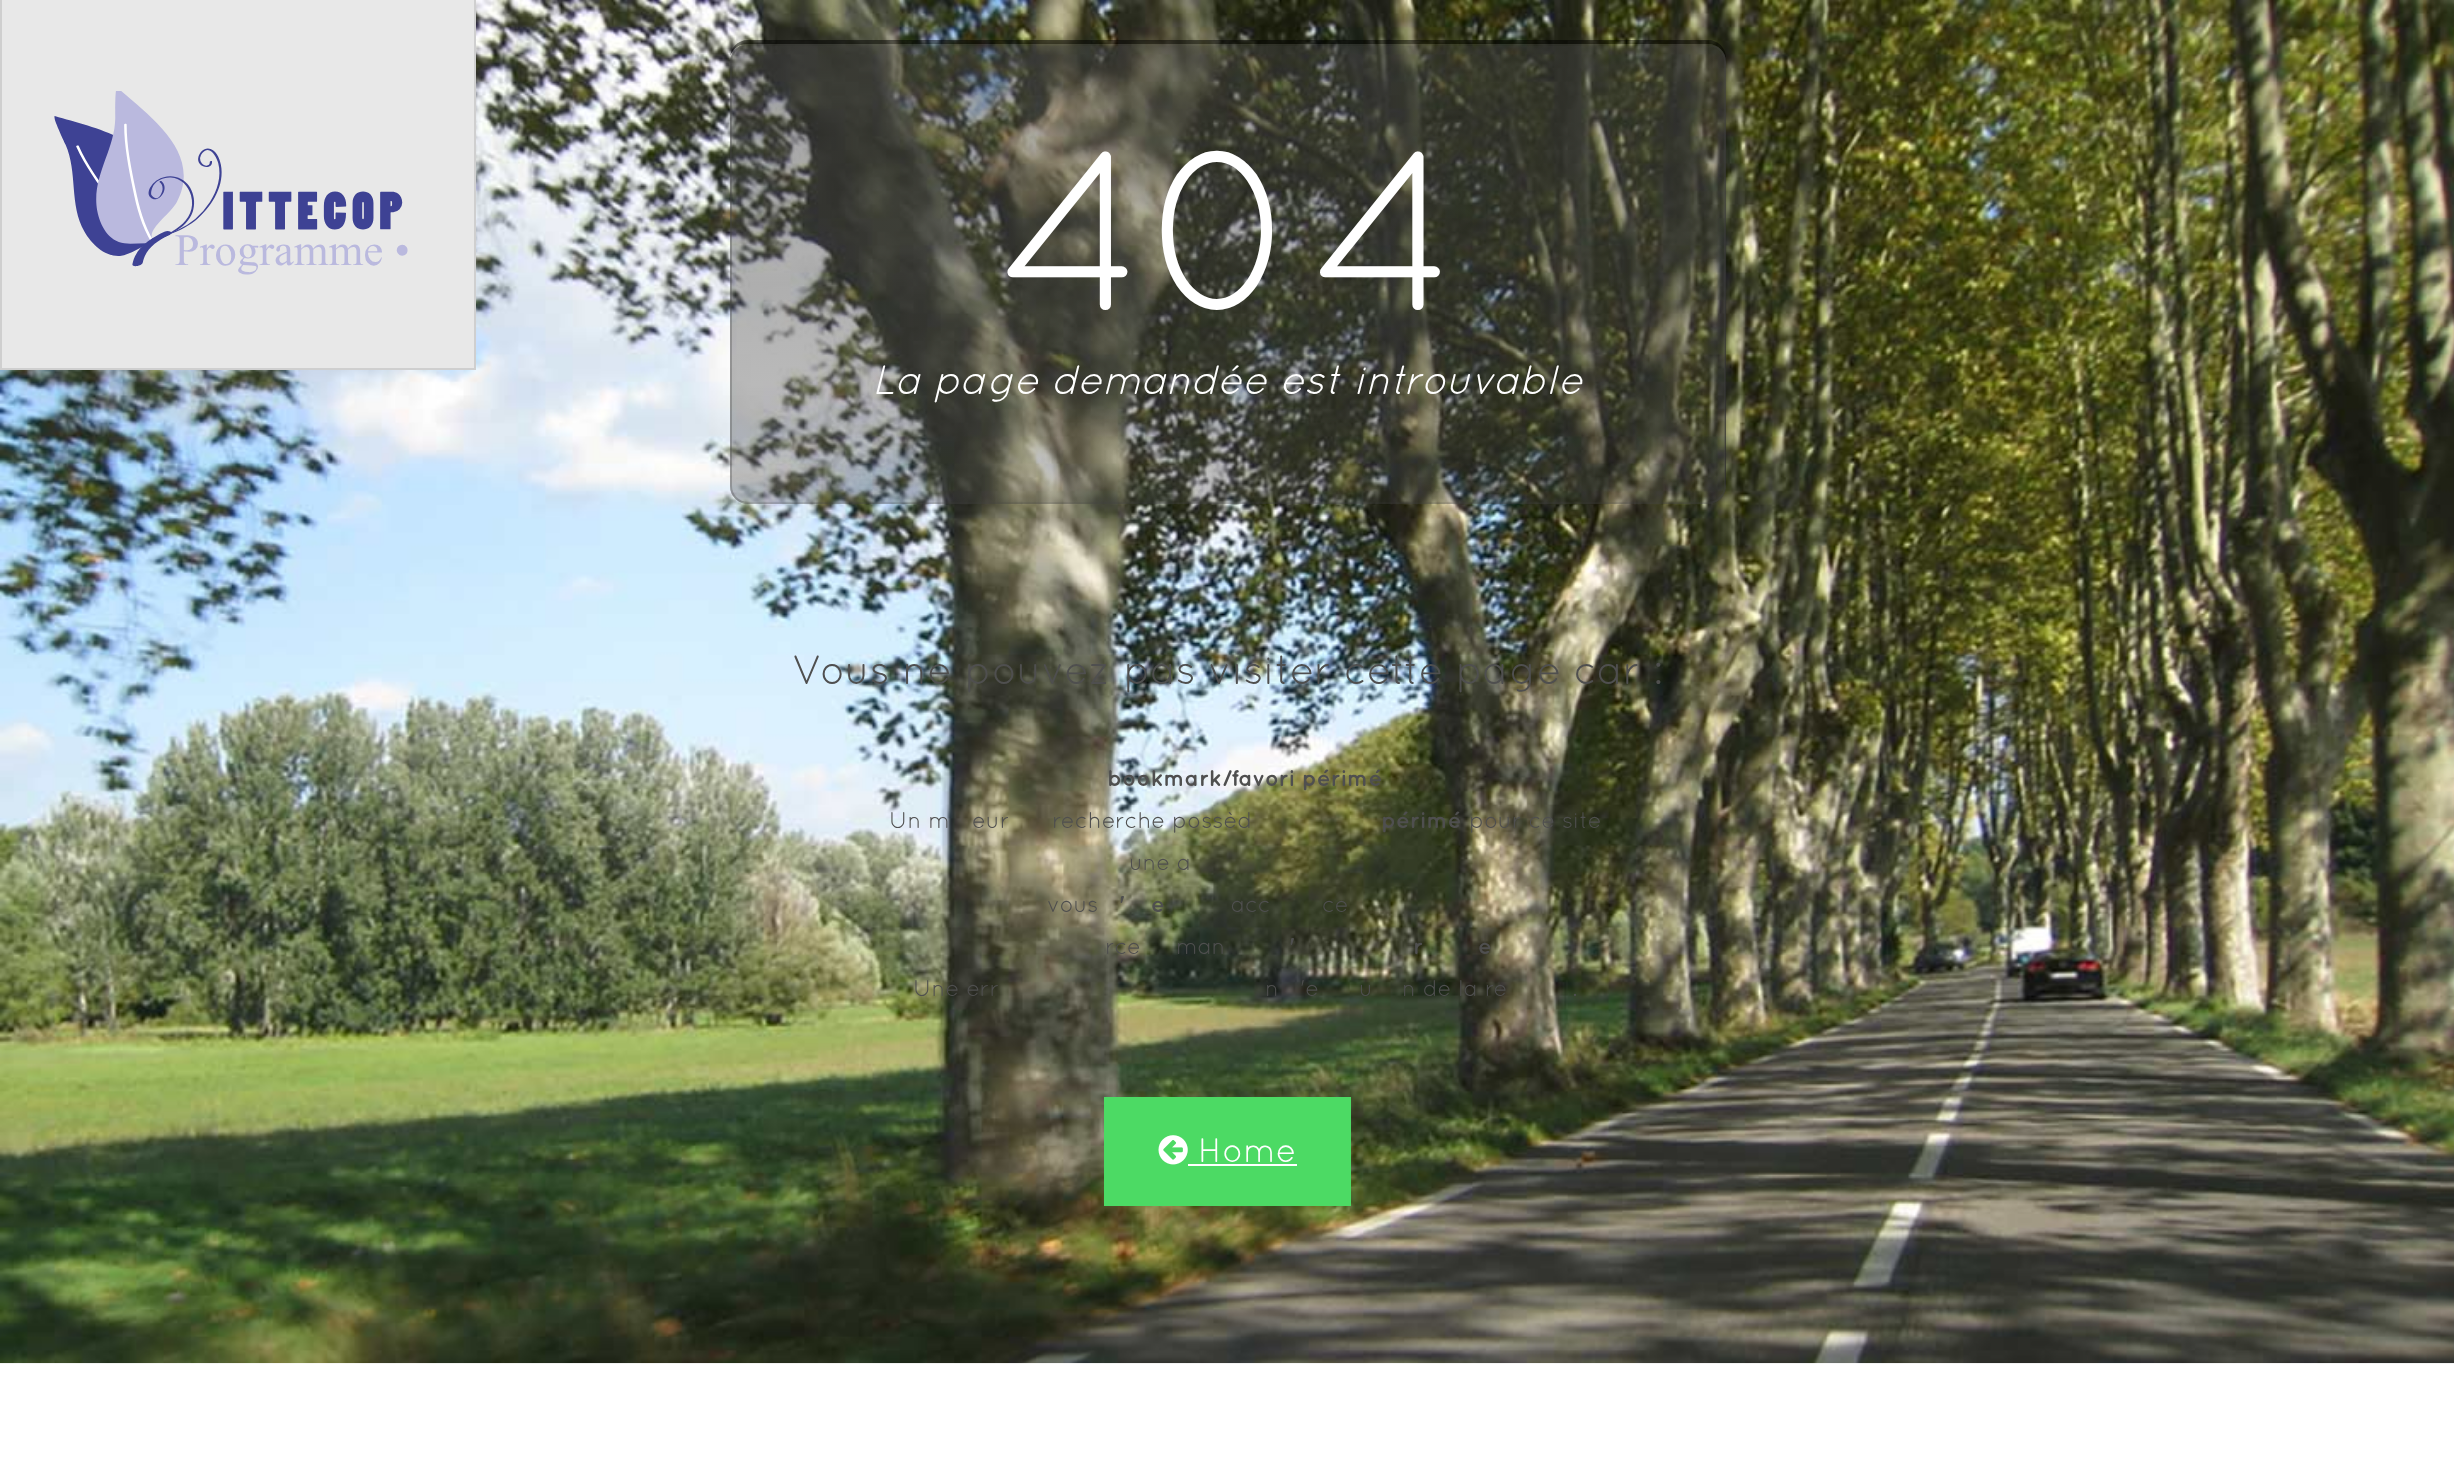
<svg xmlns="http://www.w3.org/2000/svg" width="2454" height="1482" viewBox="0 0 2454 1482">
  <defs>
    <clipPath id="clip1"><rect x="730" y="44" width="996" height="460" rx="18"/></clipPath>
    <linearGradient id="g1" gradientUnits="userSpaceOnUse" x1="1228" y1="45" x2="1228" y2="502"><stop offset="0" stop-color="#424242" stop-opacity="0.4"/><stop offset="1" stop-color="#424242" stop-opacity="0.2"/></linearGradient>
  </defs>
  <rect width="100%" height="100%" fill="#fff"/>
  <image x="0" y="0" width="2454" height="1364" href="img/1.png"/>
  <path d="M2 0h472v368H2z" fill="#e8e8e8"/>
  <path d="M474 0h2v369H474z" fill="#cfcfcf"/>
  <path d="M0 368h476v2H0z" fill="#cfcfcf"/>
  <path d="M0 0h2v369H0z" fill="#cfcfcf"/>
  <image x="54" y="91" width="354" height="184" href="img/2.png"/>
  <path d="M748 40C738 40 730 48 730 58C731 50 739 44 747 44H1708C1718 44 1726 52 1726 61L1725 487L1726 483V58C1726 48 1718 40 1708 40Z" fill="#00000080"/>
  <rect x="730" y="44" width="996" height="460" rx="18" fill="#42424229"/>
  <g clip-path="url(#clip1)">
    <path d="M730 46h996v456H730z" fill="url(#g1)"/>
  </g>
  <rect x="731" y="45" width="994" height="458" rx="17" fill="none" stroke="#4242424d" stroke-width="2"/>
  <path d="M1104 1097h247v109H1104z" fill="#4cda64"/>
  <image x="1158" y="1135" width="30" height="30" href="img/3.png"/>
  <path d="M1188 1164h109v2H1188z" fill="#fff"/>
  <text x="996" y="310" font-family="Quicksand" font-size="227.5" fill="#fff">404</text>
  <text x="872" y="394" font-family="Quicksand" font-size="40.95" font-style="italic" fill="#fff">La page demandée est introuvable</text>
  <text x="792" y="684" font-family="Quicksand" font-size="40.95" fill="#4f4f4f">Vous ne pouvez pas visiter cette page car :</text>
  <text x="1107" y="786" font-family="Quicksand" font-size="22.75" font-weight="bold" fill="#4f4f4f">bookmark/favori périmé</text>
  <g font-family="Quicksand" font-size="22.75" fill="#4f4f4f">
    <text x="889" y="828">Un m</text>
    <text x="972" y="828">eur</text>
    <text x="1052" y="828">recherche possèd</text>
  </g>
  <text x="1381" y="828" font-family="Quicksand" font-size="22.75" font-weight="bold" fill="#4f4f4f">périmé</text>
  <g font-family="Quicksand" font-size="22.75" fill="#4f4f4f">
    <text x="1469" y="828">pour ce site</text>
    <text x="1129" y="870">une a</text>
    <text x="1047" y="912">vous</text>
  </g>
  <g font-family="Quicksand" font-size="22.75" font-weight="bold" fill="#4f4f4f">
    <text x="1119" y="912">'</text>
    <text x="1151" y="912">e</text>
  </g>
  <g font-family="Quicksand" font-size="22.75" fill="#4f4f4f">
    <text x="1231" y="912">acc</text>
    <text x="1322" y="912">ce</text>
    <text x="1105" y="954">rce</text>
    <text x="1176" y="954">man</text>
  </g>
  <g font-family="Quicksand" font-size="22.75" font-weight="bold" fill="#4f4f4f">
    <text x="1289" y="954">'</text>
    <text x="1413" y="954">r</text>
    <text x="1478" y="954">e</text>
  </g>
  <g font-family="Quicksand" font-size="22.75" fill="#4f4f4f">
    <text x="913" y="996">Une err</text>
    <text x="1265" y="996">n</text>
    <text x="1300" y="996">'e</text>
    <text x="1359" y="996">u</text>
    <text x="1402" y="996">n de la re</text>
    <text x="1572" y="996">.</text>
  </g>
  <text x="1198" y="1162" font-family="Quicksand" font-size="34" fill="#fff">Home</text>
</svg>
